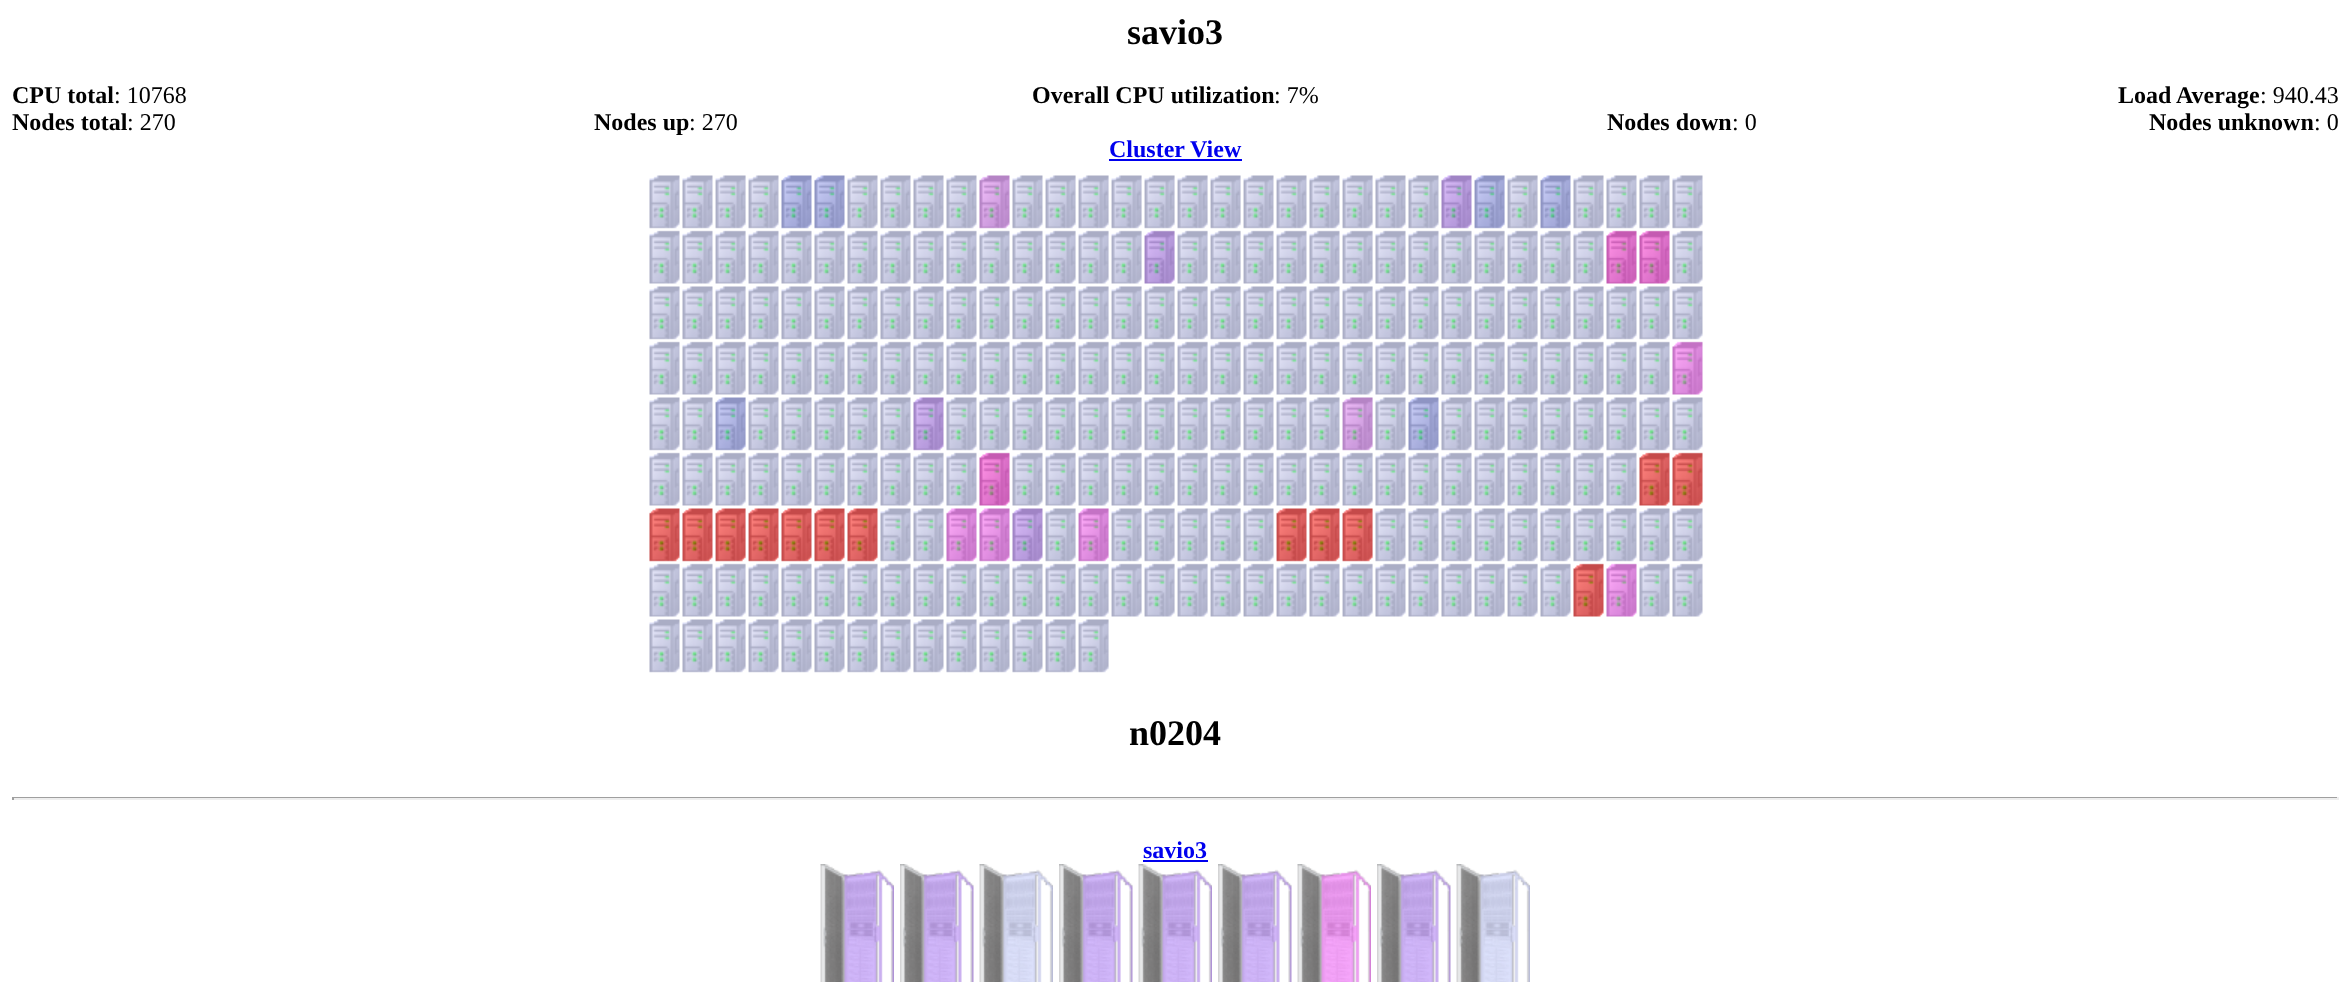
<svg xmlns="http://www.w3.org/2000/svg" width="2350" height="982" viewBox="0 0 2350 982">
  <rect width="100%" height="100%" fill="#fff"/>
  <path d="M1109 159h133v2H1109z" fill="#00e"/>
  <image x="649" y="175" width="31" height="54" href="img/1.png"/>
  <image x="682" y="175" width="31" height="54" href="img/1.png"/>
  <image x="715" y="175" width="31" height="54" href="img/2.png"/>
  <image x="748" y="175" width="31" height="54" href="img/3.png"/>
  <image x="781" y="175" width="31" height="54" href="img/4.png"/>
  <image x="814" y="175" width="31" height="54" href="img/4.png"/>
  <image x="847" y="175" width="31" height="54" href="img/1.png"/>
  <image x="880" y="175" width="31" height="54" href="img/1.png"/>
  <image x="913" y="175" width="31" height="54" href="img/1.png"/>
  <image x="946" y="175" width="31" height="54" href="img/1.png"/>
  <image x="979" y="175" width="31" height="54" href="img/5.png"/>
  <image x="1012" y="175" width="31" height="54" href="img/1.png"/>
  <image x="1045" y="175" width="31" height="54" href="img/2.png"/>
  <image x="1078" y="175" width="31" height="54" href="img/2.png"/>
  <image x="1111" y="175" width="31" height="54" href="img/2.png"/>
  <image x="1144" y="175" width="31" height="54" href="img/2.png"/>
  <image x="1177" y="175" width="31" height="54" href="img/2.png"/>
  <image x="1210" y="175" width="31" height="54" href="img/2.png"/>
  <image x="1243" y="175" width="31" height="54" href="img/3.png"/>
  <image x="1276" y="175" width="31" height="54" href="img/6.png"/>
  <image x="1309" y="175" width="31" height="54" href="img/1.png"/>
  <image x="1342" y="175" width="31" height="54" href="img/2.png"/>
  <image x="1375" y="175" width="31" height="54" href="img/1.png"/>
  <image x="1408" y="175" width="31" height="54" href="img/1.png"/>
  <image x="1441" y="175" width="31" height="54" href="img/7.png"/>
  <image x="1474" y="175" width="31" height="54" href="img/8.png"/>
  <image x="1507" y="175" width="31" height="54" href="img/2.png"/>
  <image x="1540" y="175" width="31" height="54" href="img/4.png"/>
  <image x="1573" y="175" width="31" height="54" href="img/1.png"/>
  <image x="1606" y="175" width="31" height="54" href="img/1.png"/>
  <image x="1639" y="175" width="31" height="54" href="img/1.png"/>
  <image x="1672" y="175" width="31" height="54" href="img/1.png"/>
  <image x="649" y="230" width="31" height="54" href="img/9.png"/>
  <image x="682" y="230" width="31" height="54" href="img/9.png"/>
  <image x="715" y="230" width="31" height="54" href="img/10.png"/>
  <image x="748" y="230" width="31" height="54" href="img/11.png"/>
  <image x="781" y="230" width="31" height="54" href="img/9.png"/>
  <image x="814" y="230" width="31" height="54" href="img/9.png"/>
  <image x="847" y="230" width="31" height="54" href="img/9.png"/>
  <image x="880" y="230" width="31" height="54" href="img/9.png"/>
  <image x="913" y="230" width="31" height="54" href="img/9.png"/>
  <image x="946" y="230" width="31" height="54" href="img/9.png"/>
  <image x="979" y="230" width="31" height="54" href="img/9.png"/>
  <image x="1012" y="230" width="31" height="54" href="img/9.png"/>
  <image x="1045" y="230" width="31" height="54" href="img/10.png"/>
  <image x="1078" y="230" width="31" height="54" href="img/10.png"/>
  <image x="1111" y="230" width="31" height="54" href="img/10.png"/>
  <image x="1144" y="230" width="31" height="54" href="img/12.png"/>
  <image x="1177" y="230" width="31" height="54" href="img/10.png"/>
  <image x="1210" y="230" width="31" height="54" href="img/10.png"/>
  <image x="1243" y="230" width="31" height="54" href="img/11.png"/>
  <image x="1276" y="230" width="31" height="54" href="img/13.png"/>
  <image x="1309" y="230" width="31" height="54" href="img/9.png"/>
  <image x="1342" y="230" width="31" height="54" href="img/10.png"/>
  <image x="1375" y="230" width="31" height="54" href="img/9.png"/>
  <image x="1408" y="230" width="31" height="54" href="img/9.png"/>
  <image x="1441" y="230" width="31" height="54" href="img/9.png"/>
  <image x="1474" y="230" width="31" height="54" href="img/10.png"/>
  <image x="1507" y="230" width="31" height="54" href="img/10.png"/>
  <image x="1540" y="230" width="31" height="54" href="img/9.png"/>
  <image x="1573" y="230" width="31" height="54" href="img/9.png"/>
  <image x="1606" y="230" width="31" height="54" href="img/14.png"/>
  <image x="1639" y="230" width="31" height="54" href="img/14.png"/>
  <image x="1672" y="230" width="31" height="54" href="img/9.png"/>
  <image x="649" y="286" width="31" height="54" href="img/1.png"/>
  <image x="682" y="286" width="31" height="54" href="img/1.png"/>
  <image x="715" y="286" width="31" height="54" href="img/2.png"/>
  <image x="748" y="286" width="31" height="54" href="img/3.png"/>
  <image x="781" y="286" width="31" height="54" href="img/1.png"/>
  <image x="814" y="286" width="31" height="54" href="img/1.png"/>
  <image x="847" y="286" width="31" height="54" href="img/1.png"/>
  <image x="880" y="286" width="31" height="54" href="img/1.png"/>
  <image x="913" y="286" width="31" height="54" href="img/1.png"/>
  <image x="946" y="286" width="31" height="54" href="img/1.png"/>
  <image x="979" y="286" width="31" height="54" href="img/1.png"/>
  <image x="1012" y="286" width="31" height="54" href="img/1.png"/>
  <image x="1045" y="286" width="31" height="54" href="img/2.png"/>
  <image x="1078" y="286" width="31" height="54" href="img/2.png"/>
  <image x="1111" y="286" width="31" height="54" href="img/2.png"/>
  <image x="1144" y="286" width="31" height="54" href="img/2.png"/>
  <image x="1177" y="286" width="31" height="54" href="img/2.png"/>
  <image x="1210" y="286" width="31" height="54" href="img/2.png"/>
  <image x="1243" y="286" width="31" height="54" href="img/3.png"/>
  <image x="1276" y="286" width="31" height="54" href="img/6.png"/>
  <image x="1309" y="286" width="31" height="54" href="img/1.png"/>
  <image x="1342" y="286" width="31" height="54" href="img/2.png"/>
  <image x="1375" y="286" width="31" height="54" href="img/1.png"/>
  <image x="1408" y="286" width="31" height="54" href="img/1.png"/>
  <image x="1441" y="286" width="31" height="54" href="img/1.png"/>
  <image x="1474" y="286" width="31" height="54" href="img/2.png"/>
  <image x="1507" y="286" width="31" height="54" href="img/2.png"/>
  <image x="1540" y="286" width="31" height="54" href="img/1.png"/>
  <image x="1573" y="286" width="31" height="54" href="img/1.png"/>
  <image x="1606" y="286" width="31" height="54" href="img/1.png"/>
  <image x="1639" y="286" width="31" height="54" href="img/1.png"/>
  <image x="1672" y="286" width="31" height="54" href="img/1.png"/>
  <image x="649" y="341" width="31" height="54" href="img/9.png"/>
  <image x="682" y="341" width="31" height="54" href="img/9.png"/>
  <image x="715" y="341" width="31" height="54" href="img/10.png"/>
  <image x="748" y="341" width="31" height="54" href="img/11.png"/>
  <image x="781" y="341" width="31" height="54" href="img/9.png"/>
  <image x="814" y="341" width="31" height="54" href="img/9.png"/>
  <image x="847" y="341" width="31" height="54" href="img/9.png"/>
  <image x="880" y="341" width="31" height="54" href="img/9.png"/>
  <image x="913" y="341" width="31" height="54" href="img/9.png"/>
  <image x="946" y="341" width="31" height="54" href="img/9.png"/>
  <image x="979" y="341" width="31" height="54" href="img/9.png"/>
  <image x="1012" y="341" width="31" height="54" href="img/9.png"/>
  <image x="1045" y="341" width="31" height="54" href="img/10.png"/>
  <image x="1078" y="341" width="31" height="54" href="img/10.png"/>
  <image x="1111" y="341" width="31" height="54" href="img/10.png"/>
  <image x="1144" y="341" width="31" height="54" href="img/10.png"/>
  <image x="1177" y="341" width="31" height="54" href="img/10.png"/>
  <image x="1210" y="341" width="31" height="54" href="img/10.png"/>
  <image x="1243" y="341" width="31" height="54" href="img/11.png"/>
  <image x="1276" y="341" width="31" height="54" href="img/13.png"/>
  <image x="1309" y="341" width="31" height="54" href="img/9.png"/>
  <image x="1342" y="341" width="31" height="54" href="img/10.png"/>
  <image x="1375" y="341" width="31" height="54" href="img/9.png"/>
  <image x="1408" y="341" width="31" height="54" href="img/9.png"/>
  <image x="1441" y="341" width="31" height="54" href="img/9.png"/>
  <image x="1474" y="341" width="31" height="54" href="img/10.png"/>
  <image x="1507" y="341" width="31" height="54" href="img/10.png"/>
  <image x="1540" y="341" width="31" height="54" href="img/9.png"/>
  <image x="1573" y="341" width="31" height="54" href="img/9.png"/>
  <image x="1606" y="341" width="31" height="54" href="img/9.png"/>
  <image x="1639" y="341" width="31" height="54" href="img/9.png"/>
  <image x="1672" y="341" width="31" height="54" href="img/15.png"/>
  <image x="649" y="397" width="31" height="54" href="img/1.png"/>
  <image x="682" y="397" width="31" height="54" href="img/1.png"/>
  <image x="715" y="397" width="31" height="54" href="img/8.png"/>
  <image x="748" y="397" width="31" height="54" href="img/3.png"/>
  <image x="781" y="397" width="31" height="54" href="img/1.png"/>
  <image x="814" y="397" width="31" height="54" href="img/1.png"/>
  <image x="847" y="397" width="31" height="54" href="img/1.png"/>
  <image x="880" y="397" width="31" height="54" href="img/1.png"/>
  <image x="913" y="397" width="31" height="54" href="img/7.png"/>
  <image x="946" y="397" width="31" height="54" href="img/1.png"/>
  <image x="979" y="397" width="31" height="54" href="img/1.png"/>
  <image x="1012" y="397" width="31" height="54" href="img/1.png"/>
  <image x="1045" y="397" width="31" height="54" href="img/2.png"/>
  <image x="1078" y="397" width="31" height="54" href="img/2.png"/>
  <image x="1111" y="397" width="31" height="54" href="img/2.png"/>
  <image x="1144" y="397" width="31" height="54" href="img/2.png"/>
  <image x="1177" y="397" width="31" height="54" href="img/2.png"/>
  <image x="1210" y="397" width="31" height="54" href="img/2.png"/>
  <image x="1243" y="397" width="31" height="54" href="img/3.png"/>
  <image x="1276" y="397" width="31" height="54" href="img/6.png"/>
  <image x="1309" y="397" width="31" height="54" href="img/1.png"/>
  <image x="1342" y="397" width="31" height="54" href="img/16.png"/>
  <image x="1375" y="397" width="31" height="54" href="img/1.png"/>
  <image x="1408" y="397" width="31" height="54" href="img/4.png"/>
  <image x="1441" y="397" width="31" height="54" href="img/1.png"/>
  <image x="1474" y="397" width="31" height="54" href="img/2.png"/>
  <image x="1507" y="397" width="31" height="54" href="img/2.png"/>
  <image x="1540" y="397" width="31" height="54" href="img/1.png"/>
  <image x="1573" y="397" width="31" height="54" href="img/1.png"/>
  <image x="1606" y="397" width="31" height="54" href="img/1.png"/>
  <image x="1639" y="397" width="31" height="54" href="img/1.png"/>
  <image x="1672" y="397" width="31" height="54" href="img/1.png"/>
  <image x="649" y="452" width="31" height="54" href="img/9.png"/>
  <image x="682" y="452" width="31" height="54" href="img/9.png"/>
  <image x="715" y="452" width="31" height="54" href="img/10.png"/>
  <image x="748" y="452" width="31" height="54" href="img/11.png"/>
  <image x="781" y="452" width="31" height="54" href="img/9.png"/>
  <image x="814" y="452" width="31" height="54" href="img/9.png"/>
  <image x="847" y="452" width="31" height="54" href="img/9.png"/>
  <image x="880" y="452" width="31" height="54" href="img/9.png"/>
  <image x="913" y="452" width="31" height="54" href="img/9.png"/>
  <image x="946" y="452" width="31" height="54" href="img/9.png"/>
  <image x="979" y="452" width="31" height="54" href="img/14.png"/>
  <image x="1012" y="452" width="31" height="54" href="img/9.png"/>
  <image x="1045" y="452" width="31" height="54" href="img/10.png"/>
  <image x="1078" y="452" width="31" height="54" href="img/10.png"/>
  <image x="1111" y="452" width="31" height="54" href="img/10.png"/>
  <image x="1144" y="452" width="31" height="54" href="img/10.png"/>
  <image x="1177" y="452" width="31" height="54" href="img/10.png"/>
  <image x="1210" y="452" width="31" height="54" href="img/10.png"/>
  <image x="1243" y="452" width="31" height="54" href="img/11.png"/>
  <image x="1276" y="452" width="31" height="54" href="img/13.png"/>
  <image x="1309" y="452" width="31" height="54" href="img/9.png"/>
  <image x="1342" y="452" width="31" height="54" href="img/10.png"/>
  <image x="1375" y="452" width="31" height="54" href="img/9.png"/>
  <image x="1408" y="452" width="31" height="54" href="img/9.png"/>
  <image x="1441" y="452" width="31" height="54" href="img/9.png"/>
  <image x="1474" y="452" width="31" height="54" href="img/10.png"/>
  <image x="1507" y="452" width="31" height="54" href="img/10.png"/>
  <image x="1540" y="452" width="31" height="54" href="img/9.png"/>
  <image x="1573" y="452" width="31" height="54" href="img/9.png"/>
  <image x="1606" y="452" width="31" height="54" href="img/9.png"/>
  <image x="1639" y="452" width="31" height="54" href="img/17.png"/>
  <image x="1672" y="452" width="31" height="54" href="img/17.png"/>
  <image x="649" y="508" width="31" height="54" href="img/18.png"/>
  <image x="682" y="508" width="31" height="54" href="img/18.png"/>
  <image x="715" y="508" width="31" height="54" href="img/19.png"/>
  <image x="748" y="508" width="31" height="54" href="img/20.png"/>
  <image x="781" y="508" width="31" height="54" href="img/18.png"/>
  <image x="814" y="508" width="31" height="54" href="img/18.png"/>
  <image x="847" y="508" width="31" height="54" href="img/18.png"/>
  <image x="880" y="508" width="31" height="54" href="img/1.png"/>
  <image x="913" y="508" width="31" height="54" href="img/1.png"/>
  <image x="946" y="508" width="31" height="54" href="img/21.png"/>
  <image x="979" y="508" width="31" height="54" href="img/21.png"/>
  <image x="1012" y="508" width="31" height="54" href="img/7.png"/>
  <image x="1045" y="508" width="31" height="54" href="img/2.png"/>
  <image x="1078" y="508" width="31" height="54" href="img/22.png"/>
  <image x="1111" y="508" width="31" height="54" href="img/2.png"/>
  <image x="1144" y="508" width="31" height="54" href="img/2.png"/>
  <image x="1177" y="508" width="31" height="54" href="img/2.png"/>
  <image x="1210" y="508" width="31" height="54" href="img/2.png"/>
  <image x="1243" y="508" width="31" height="54" href="img/3.png"/>
  <image x="1276" y="508" width="31" height="54" href="img/23.png"/>
  <image x="1309" y="508" width="31" height="54" href="img/18.png"/>
  <image x="1342" y="508" width="31" height="54" href="img/19.png"/>
  <image x="1375" y="508" width="31" height="54" href="img/1.png"/>
  <image x="1408" y="508" width="31" height="54" href="img/1.png"/>
  <image x="1441" y="508" width="31" height="54" href="img/1.png"/>
  <image x="1474" y="508" width="31" height="54" href="img/2.png"/>
  <image x="1507" y="508" width="31" height="54" href="img/2.png"/>
  <image x="1540" y="508" width="31" height="54" href="img/1.png"/>
  <image x="1573" y="508" width="31" height="54" href="img/1.png"/>
  <image x="1606" y="508" width="31" height="54" href="img/1.png"/>
  <image x="1639" y="508" width="31" height="54" href="img/1.png"/>
  <image x="1672" y="508" width="31" height="54" href="img/1.png"/>
  <image x="649" y="563" width="31" height="54" href="img/9.png"/>
  <image x="682" y="563" width="31" height="54" href="img/9.png"/>
  <image x="715" y="563" width="31" height="54" href="img/10.png"/>
  <image x="748" y="563" width="31" height="54" href="img/11.png"/>
  <image x="781" y="563" width="31" height="54" href="img/9.png"/>
  <image x="814" y="563" width="31" height="54" href="img/9.png"/>
  <image x="847" y="563" width="31" height="54" href="img/9.png"/>
  <image x="880" y="563" width="31" height="54" href="img/9.png"/>
  <image x="913" y="563" width="31" height="54" href="img/9.png"/>
  <image x="946" y="563" width="31" height="54" href="img/9.png"/>
  <image x="979" y="563" width="31" height="54" href="img/9.png"/>
  <image x="1012" y="563" width="31" height="54" href="img/9.png"/>
  <image x="1045" y="563" width="31" height="54" href="img/10.png"/>
  <image x="1078" y="563" width="31" height="54" href="img/10.png"/>
  <image x="1111" y="563" width="31" height="54" href="img/10.png"/>
  <image x="1144" y="563" width="31" height="54" href="img/10.png"/>
  <image x="1177" y="563" width="31" height="54" href="img/10.png"/>
  <image x="1210" y="563" width="31" height="54" href="img/10.png"/>
  <image x="1243" y="563" width="31" height="54" href="img/11.png"/>
  <image x="1276" y="563" width="31" height="54" href="img/13.png"/>
  <image x="1309" y="563" width="31" height="54" href="img/9.png"/>
  <image x="1342" y="563" width="31" height="54" href="img/10.png"/>
  <image x="1375" y="563" width="31" height="54" href="img/9.png"/>
  <image x="1408" y="563" width="31" height="54" href="img/9.png"/>
  <image x="1441" y="563" width="31" height="54" href="img/9.png"/>
  <image x="1474" y="563" width="31" height="54" href="img/10.png"/>
  <image x="1507" y="563" width="31" height="54" href="img/10.png"/>
  <image x="1540" y="563" width="31" height="54" href="img/9.png"/>
  <image x="1573" y="563" width="31" height="54" href="img/17.png"/>
  <image x="1606" y="563" width="31" height="54" href="img/15.png"/>
  <image x="1639" y="563" width="31" height="54" href="img/9.png"/>
  <image x="1672" y="563" width="31" height="54" href="img/9.png"/>
  <image x="649" y="619" width="31" height="54" href="img/1.png"/>
  <image x="682" y="619" width="31" height="54" href="img/1.png"/>
  <image x="715" y="619" width="31" height="54" href="img/2.png"/>
  <image x="748" y="619" width="31" height="54" href="img/3.png"/>
  <image x="781" y="619" width="31" height="54" href="img/1.png"/>
  <image x="814" y="619" width="31" height="54" href="img/1.png"/>
  <image x="847" y="619" width="31" height="54" href="img/1.png"/>
  <image x="880" y="619" width="31" height="54" href="img/1.png"/>
  <image x="913" y="619" width="31" height="54" href="img/1.png"/>
  <image x="946" y="619" width="31" height="54" href="img/1.png"/>
  <image x="979" y="619" width="31" height="54" href="img/1.png"/>
  <image x="1012" y="619" width="31" height="54" href="img/1.png"/>
  <image x="1045" y="619" width="31" height="54" href="img/2.png"/>
  <image x="1078" y="619" width="31" height="54" href="img/2.png"/>
  <path d="M12 797h2327v1H12z" fill="#9f9f9f"/>
  <path d="M2337 797h2v3H2337z" fill="#eee"/>
  <path d="M12 798h2327v2H12z" fill="#eee"/>
  <path d="M12 797h2v3H12z" fill="#9f9f9f"/>
  <path d="M1143 860h65v2H1143z" fill="#00e"/>
  <image x="820" y="864" width="74" height="118" href="img/24.png"/>
  <image x="900" y="864" width="74" height="118" href="img/25.png"/>
  <image x="979" y="864" width="74" height="118" href="img/26.png"/>
  <image x="1059" y="864" width="74" height="118" href="img/27.png"/>
  <image x="1138" y="864" width="74" height="118" href="img/28.png"/>
  <image x="1218" y="864" width="74" height="118" href="img/29.png"/>
  <image x="1297" y="864" width="74" height="118" href="img/30.png"/>
  <image x="1377" y="864" width="74" height="118" href="img/25.png"/>
  <image x="1456" y="864" width="74" height="118" href="img/31.png"/>
  <text x="1127" y="44" font-family="Liberation Serif" font-size="36" font-weight="bold" fill="#000">savio3</text>
  <text x="12" y="103" font-family="Liberation Serif" font-size="24" font-weight="bold" fill="#000">CPU total</text>
  <text x="114" y="103" font-family="Liberation Serif" font-size="24" fill="#000">: 10768</text>
  <text x="1032" y="103" font-family="Liberation Serif" font-size="24" font-weight="bold" fill="#000">Overall CPU utilization</text>
  <text x="1274" y="103" font-family="Liberation Serif" font-size="24" fill="#000">: 7%</text>
  <text x="2118" y="103" font-family="Liberation Serif" font-size="24" font-weight="bold" fill="#000">Load Average</text>
  <text x="2260" y="103" font-family="Liberation Serif" font-size="24" fill="#000">: 940.43</text>
  <text x="12" y="130" font-family="Liberation Serif" font-size="24" font-weight="bold" fill="#000">Nodes total</text>
  <text x="127" y="130" font-family="Liberation Serif" font-size="24" fill="#000">: 270</text>
  <text x="594" y="130" font-family="Liberation Serif" font-size="24" font-weight="bold" fill="#000">Nodes up</text>
  <text x="689" y="130" font-family="Liberation Serif" font-size="24" fill="#000">: 270</text>
  <text x="1607" y="130" font-family="Liberation Serif" font-size="24" font-weight="bold" fill="#000">Nodes down</text>
  <text x="1732" y="130" font-family="Liberation Serif" font-size="24" fill="#000">: 0</text>
  <text x="2149" y="130" font-family="Liberation Serif" font-size="24" font-weight="bold" fill="#000">Nodes unknown</text>
  <text x="2314" y="130" font-family="Liberation Serif" font-size="24" fill="#000">: 0</text>
  <text x="1109" y="157" font-family="Liberation Serif" font-size="24" font-weight="bold" fill="#00e">Cluster View</text>
  <text x="1129" y="745" font-family="Liberation Serif" font-size="36" font-weight="bold" fill="#000">n0204</text>
  <text x="1143" y="858" font-family="Liberation Serif" font-size="24" font-weight="bold" fill="#00e">savio3</text>
</svg>
